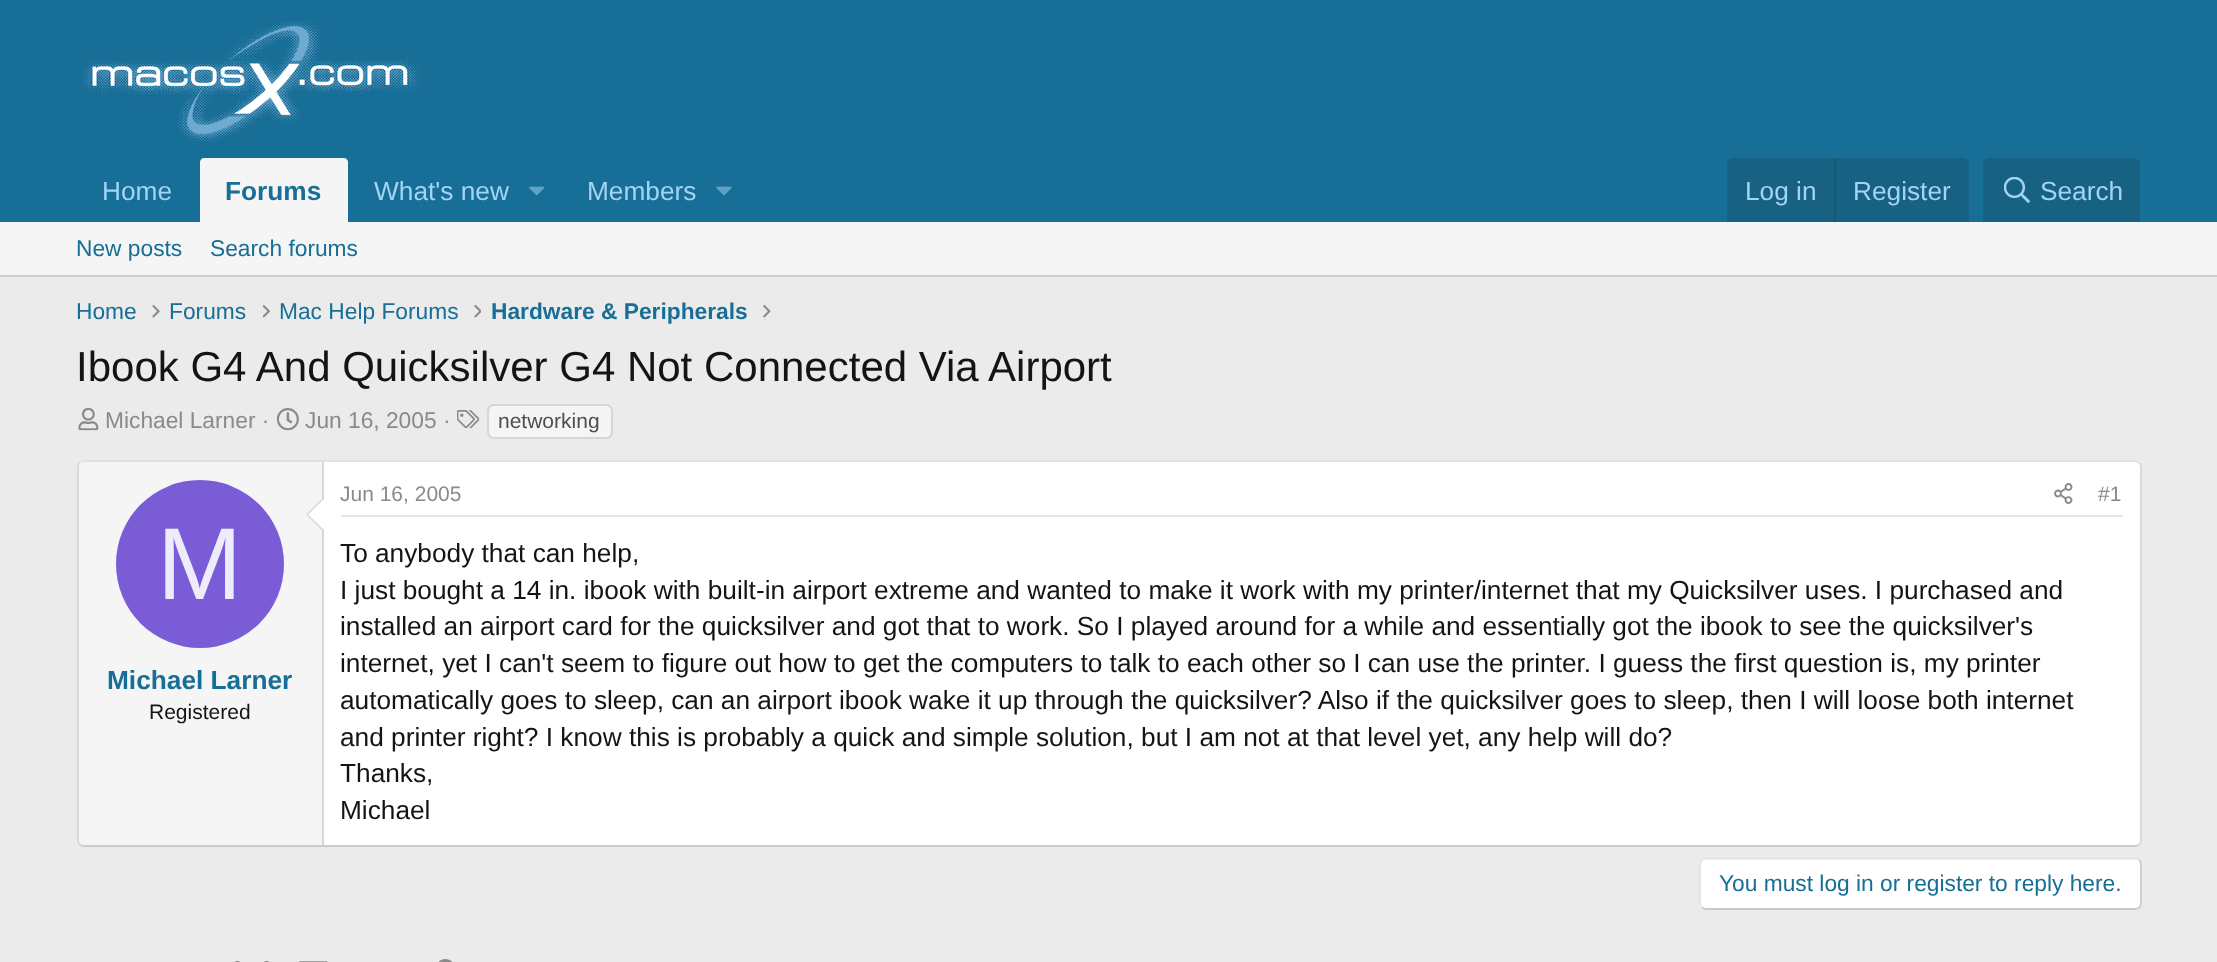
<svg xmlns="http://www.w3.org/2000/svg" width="2217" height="962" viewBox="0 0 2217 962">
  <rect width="100%" height="100%" fill="#ebebeb"/>
  <path d="M0 0h2217v222H0z" fill="#176e97"/>
  <image x="82" y="20" width="338" height="122" href="img/1.png"/>
  <path d="M204 158H344C346 158 348 160 348 162V222H200V162C200 160 202 158 204 158Z" fill="#f5f5f5"/>
  <image x="529" y="186" width="15" height="10" href="img/2.png"/>
  <image x="716" y="186" width="16" height="10" href="img/3.png"/>
  <path d="M1734 158H1962C1966 158 1969 161 1969 165V222H1727V165C1727 161 1730 158 1734 158Z" fill="#176183"/>
  <path d="M1834 158h2v64H1834z" fill="#175572"/>
  <path d="M1990 158H2133C2137 158 2140 161 2140 165V222H1983V165C1983 161 1986 158 1990 158Z" fill="#176183"/>
  <image x="2004" y="177" width="26" height="26" href="img/4.png"/>
  <path d="M0 222h2217v53H0z" fill="#f5f5f5"/>
  <path d="M0 275h2217v2H0z" fill="#ccc"/>
  <image x="152" y="304" width="8" height="14" href="img/5.png"/>
  <image x="263" y="305" width="7" height="13" href="img/6.png"/>
  <image x="474" y="304" width="7" height="14" href="img/7.png"/>
  <image x="763" y="304" width="8" height="14" href="img/8.png"/>
  <image x="78" y="408" width="21" height="23" href="img/9.png"/>
  <image x="277" y="408" width="22" height="23" href="img/10.png"/>
  <image x="457" y="410" width="23" height="19" href="img/11.png"/>
  <rect x="488" y="405" width="124" height="33" rx="6" fill="#f5f5f5" stroke="#d6d6d6" stroke-width="2"/>
  <rect x="77" y="460" width="2065" height="387" rx="7" fill="#fff"/>
  <path d="M79.5 463C81 462 82.5 461 84 461H2135C2136.5 461 2138 462 2139.5 463" fill="none" stroke="#e0e0e0" stroke-width="1.8"/>
  <path d="M2139.5 463C2140.5 464 2141 465.5 2141 467V840C2141 841.5 2140.5 843 2139.5 844.5" fill="none" stroke="#d6d6d6" stroke-width="1.8"/>
  <path d="M2139.5 844.5C2138 845.5 2136.5 846 2135 846H84C82.5 846 81 845.5 79.5 844.5" fill="none" stroke="#ccc" stroke-width="1.8"/>
  <path d="M79.5 844.5C78.5 843 78 841.5 78 840V467C78 465.5 78.5 464 79.5 463" fill="none" stroke="#d6d6d6" stroke-width="1.8"/>
  <path d="M84 462H324V845H84C81 845 79 843 79 840V467C79 464 81 462 84 462Z" fill="#f5f5f5"/>
  <path d="M322 462h2v383H322z" fill="#d6d6d6"/>
  <path d="M324 497V532L306 514.5Z" fill="#d6d6d6"/>
  <path d="M324 499V530L308 514.5Z" fill="#fff"/>
  <circle cx="200" cy="564" r="84" fill="#7a5cd6"/>
  <path d="M341 515h1782v2H341z" fill="#e6e6e6"/>
  <image x="2054" y="483" width="19" height="21" href="img/12.png"/>
  <rect x="1699" y="858" width="443" height="52" rx="7" fill="#fff"/>
  <path d="M2139.5 860C2140.5 861.5 2141 863 2141 864.5V903C2141 904.5 2140.5 906 2139.5 907.5C2138 908.5 2136.5 909 2135 909H1706C1704.5 909 1703 908.5 1702 907.5" fill="none" stroke="#c9c9c9" stroke-width="1.8"/>
  <path d="M1702 907.5C1701 906 1700 904.5 1700 903V864.5C1700 863 1701 861.5 1702 860C1703 859 1704.5 858.5 1706 858.5H2135C2136.5 858.5 2138 859 2139.5 860" fill="none" stroke="#e3e3e3" stroke-width="1.8"/>
  <image x="235" y="961" width="34" height="1" href="img/13.png"/>
  <image x="298" y="961" width="30" height="1" href="img/14.png"/>
  <image x="438" y="959" width="15" height="3" href="img/15.png"/>
  <text x="102" y="200" font-family="Liberation Sans" font-size="26.25" fill="#a3d4f5">Home</text>
  <text x="225" y="200" font-family="Liberation Sans" font-size="26.25" font-weight="bold" fill="#176e97">Forums</text>
  <g font-family="Liberation Sans" font-size="26.25" fill="#a3d4f5">
    <text x="374" y="200">What's new</text>
    <text x="587" y="200">Members</text>
    <text x="1745" y="200">Log in</text>
    <text x="1853" y="200">Register</text>
    <text x="2040" y="200">Search</text>
  </g>
  <g font-family="Liberation Sans" font-size="22.75" fill="#176e97">
    <text x="76" y="256">New posts</text>
    <text x="210" y="256">Search forums</text>
    <text x="76" y="319">Home</text>
    <text x="169" y="319">Forums</text>
    <text x="279" y="319">Mac Help Forums</text>
  </g>
  <text x="491" y="319" font-family="Liberation Sans" font-size="22.75" font-weight="bold" fill="#176e97">Hardware &amp; Peripherals</text>
  <text x="76" y="381" font-family="Liberation Sans" font-size="42" fill="#141414">Ibook G4 And Quicksilver G4 Not Connected Via Airport</text>
  <g font-family="Liberation Sans" font-size="22.75" fill="#8a8a8a">
    <text x="105" y="428">Michael Larner ·</text>
    <text x="305" y="428">Jun 16, 2005 ·</text>
  </g>
  <text x="498" y="428" font-family="Liberation Sans" font-size="21" fill="#4f4f4f">networking</text>
  <text x="157" y="599" font-family="Liberation Sans" font-size="102" fill="#eeebfa">M</text>
  <text x="107" y="689" font-family="Liberation Sans" font-size="26.25" font-weight="bold" fill="#176e97">Michael Larner</text>
  <text x="149" y="719" font-family="Liberation Sans" font-size="21" fill="#141414">Registered</text>
  <g font-family="Liberation Sans" font-size="21" fill="#8a8a8a">
    <text x="340" y="501">Jun 16, 2005</text>
    <text x="2098" y="501">#1</text>
  </g>
  <g font-family="Liberation Sans" font-size="26.25" fill="#141414">
    <text x="340" y="562">To anybody that can help,</text>
    <text x="340" y="599">I just bought a 14 in. ibook with built-in airport extreme and wanted to make it work with my printer/internet that my Quicksilver uses. I purchased and</text>
    <text x="340" y="635">installed an airport card for the quicksilver and got that to work. So I played around for a while and essentially got the ibook to see the quicksilver's</text>
    <text x="340" y="672">internet, yet I can't seem to figure out how to get the computers to talk to each other so I can use the printer. I guess the first question is, my printer</text>
    <text x="340" y="709">automatically goes to sleep, can an airport ibook wake it up through the quicksilver? Also if the quicksilver goes to sleep, then I will loose both internet</text>
    <text x="340" y="746">and printer right? I know this is probably a quick and simple solution, but I am not at that level yet, any help will do?</text>
    <text x="340" y="782">Thanks,</text>
    <text x="340" y="819">Michael</text>
  </g>
  <text x="1719" y="891" font-family="Liberation Sans" font-size="22.75" fill="#176e97">You must log in or register to reply here.</text>
</svg>
